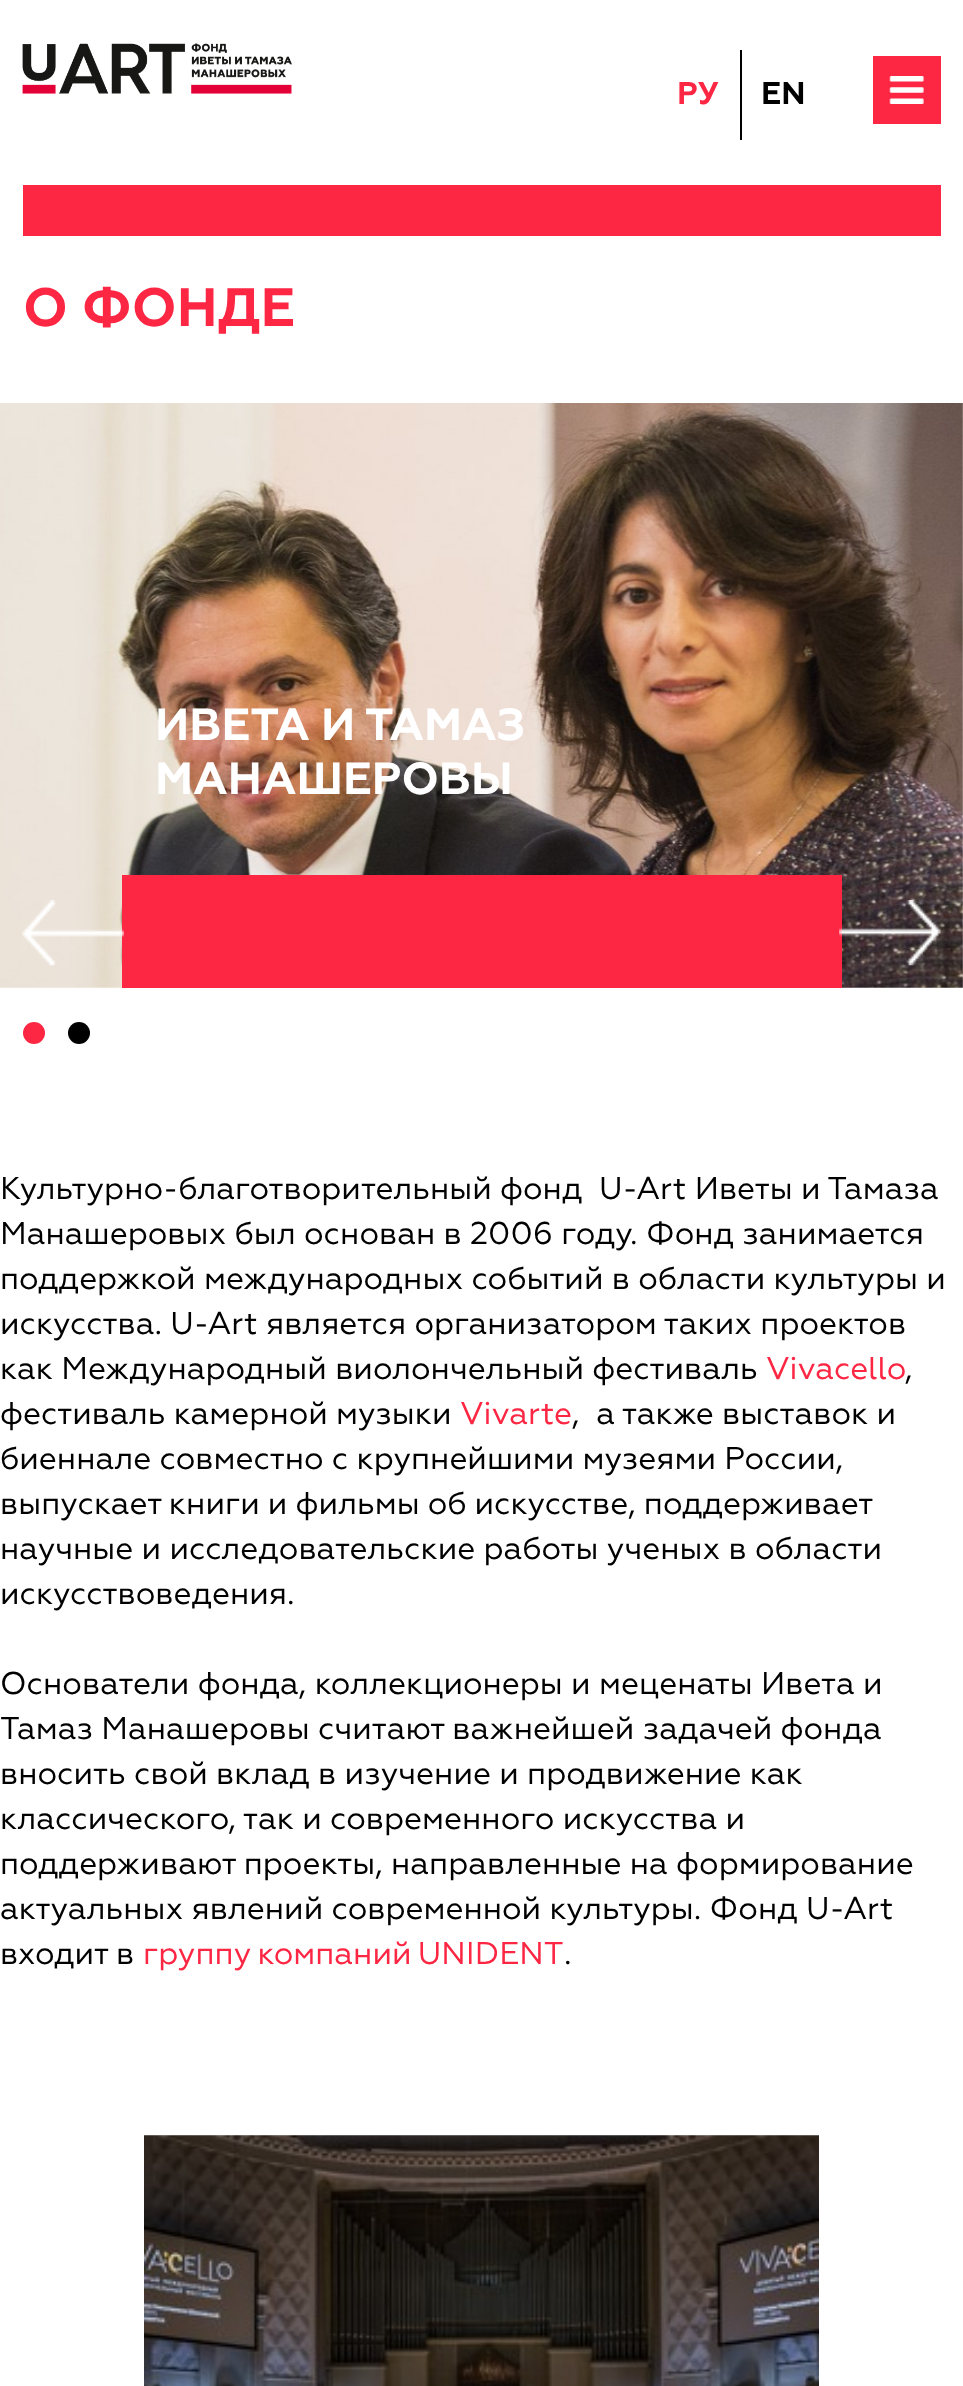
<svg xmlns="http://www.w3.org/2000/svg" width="963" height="2386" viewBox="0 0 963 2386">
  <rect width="100%" height="100%" fill="#fff"/>
  <image x="22" y="43" width="270" height="51" href="img/1.png"/>
  <path d="M740 50h2v90H740z" fill="#000"/>
  <path d="M873 56h68v68H873z" fill="#fd2643"/>
  <image x="889" y="76" width="35" height="28" href="img/2.png"/>
  <path d="M23 185h918v51H23z" fill="#fd2643"/>
  <image x="0" y="403" width="963" height="585" href="img/3.png"/>
  <path d="M122 875h720v113H122z" fill="#fd2643"/>
  <image x="22" y="900" width="102" height="66" href="img/4.png"/>
  <image x="839" y="900" width="102" height="66" href="img/5.png"/>
  <circle cx="34" cy="1033" r="11" fill="#fd2643"/>
  <circle cx="79" cy="1033" r="11" fill="#000"/>
  <image x="144" y="2135" width="675" height="251" href="img/6.png"/>
  <text x="677" y="104" font-family="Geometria" font-size="31.5" font-weight="bold" fill="#fd2643">РУ</text>
  <text x="761" y="104" font-family="Geometria" font-size="31.5" font-weight="bold" fill="#000">EN</text>
  <text x="23" y="326" font-family="Geometria" font-size="54" font-weight="bold" fill="#fd2643">О ФОНДЕ</text>
  <g font-family="Geometria" font-size="45" font-weight="bold" fill="#fff">
    <text x="155" y="740">ИВЕТА И ТАМАЗ</text>
    <text x="155" y="794">МАНАШЕРОВЫ</text>
  </g>
  <g font-family="Geometria" font-size="31.5" fill="#000">
    <text x="0" y="1199" xml:space="preserve">Культурно-благотворительный фонд  U-Art Иветы и Тамаза</text>
    <text x="0" y="1244">Манашеровых был основан в 2006 году. Фонд занимается</text>
    <text x="0" y="1289">поддержкой международных событий в области культуры и</text>
    <text x="0" y="1334">искусства. U-Art является организатором таких проектов</text>
    <text x="0" y="1379">как Международный виолончельный фестиваль</text>
  </g>
  <text x="766" y="1379" font-family="Geometria" font-size="31.5" fill="#fd2643">Vivacello</text>
  <g font-family="Geometria" font-size="31.5" fill="#000">
    <text x="905" y="1379">,</text>
    <text x="0" y="1424">фестиваль камерной музыки</text>
  </g>
  <text x="460" y="1424" font-family="Geometria" font-size="31.5" fill="#fd2643">Vivarte</text>
  <g font-family="Geometria" font-size="31.5" fill="#000">
    <text x="572" y="1424" xml:space="preserve">,  а также выставок и</text>
    <text x="0" y="1469">биеннале совместно с крупнейшими музеями России,</text>
    <text x="0" y="1514" word-spacing="-0.25">выпускает книги и фильмы об искусстве, поддерживает</text>
    <text x="0" y="1559">научные и исследовательские работы ученых в области</text>
    <text x="0" y="1604">искусствоведения.</text>
    <text x="0" y="1694">Основатели фонда, коллекционеры и меценаты Ивета и</text>
    <text x="0" y="1739">Тамаз Манашеровы считают важнейшей задачей фонда</text>
    <text x="0" y="1784">вносить свой вклад в изучение и продвижение как</text>
    <text x="0" y="1829">классического, так и современного искусства и</text>
    <text x="0" y="1874">поддерживают проекты, направленные на формирование</text>
    <text x="0" y="1919">актуальных явлений современной культуры. Фонд U-Art</text>
    <text x="0" y="1964">входит в</text>
  </g>
  <text x="143" y="1964" word-spacing="-2" font-family="Geometria" font-size="31.5" fill="#fd2643">группу компаний UNIDENT</text>
  <text x="564" y="1964" font-family="Geometria" font-size="31.5" fill="#000">.</text>
</svg>
